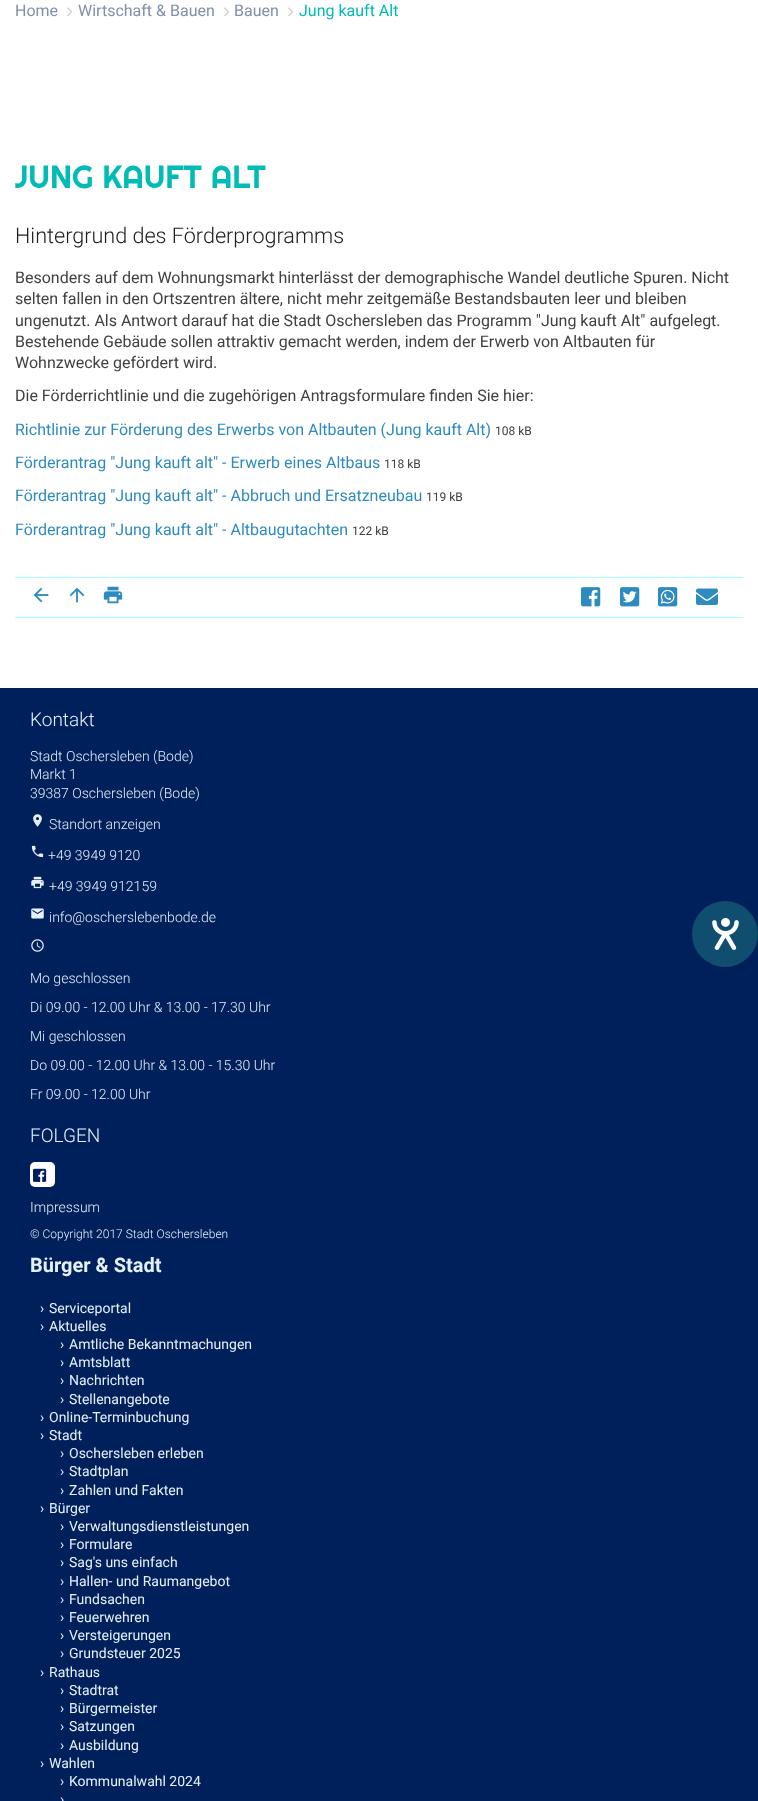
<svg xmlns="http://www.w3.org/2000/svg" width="758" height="1801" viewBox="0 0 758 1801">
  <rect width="100%" height="100%" fill="#fff"/>
  <image x="67" y="7" width="6" height="10" href="img/1.png"/>
  <image x="224" y="7" width="6" height="10" href="img/1.png"/>
  <image x="288" y="7" width="6" height="10" href="img/1.png"/>
  <path d="M15 577h728v1H15z" fill="#a3fffc"/>
  <path d="M15 617h728v1H15z" fill="#a3fffc"/>
  <image x="33" y="587" width="16" height="16" href="img/2.png"/>
  <image x="69" y="587" width="16" height="16" href="img/3.png"/>
  <image x="103" y="586" width="20" height="18" href="img/4.png"/>
  <image x="581" y="587" width="20" height="20" href="img/5.png"/>
  <image x="620" y="587" width="20" height="20" href="img/6.png"/>
  <image x="658" y="587" width="20" height="20" href="img/7.png"/>
  <image x="696" y="588" width="22" height="17" href="img/8.png"/>
  <path d="M0 688h758v1113H0z" fill="#00205c"/>
  <image x="33" y="814" width="9" height="13" href="img/9.png"/>
  <image x="31" y="845" width="13" height="13" href="img/10.png"/>
  <image x="31" y="876" width="13" height="13" href="img/11.png"/>
  <image x="31" y="908" width="13" height="11" href="img/12.png"/>
  <image x="31" y="939" width="13" height="13" href="img/13.png"/>
  <rect x="30" y="1162" width="25" height="25" rx="5" fill="#fff"/>
  <image x="33" y="1168" width="14" height="14" href="img/14.png"/>
  <circle cx="725" cy="934" r="33" fill="#104e70"/>
  <image x="712" y="918" width="27" height="32" href="img/15.png"/>
  <g font-family="Roboto" font-size="16" fill="#808fad">
    <text x="15" y="16">Home</text>
    <text x="78" y="16">Wirtschaft &amp; Bauen</text>
    <text x="234" y="16">Bauen</text>
  </g>
  <text x="299" y="16" font-family="Roboto" font-size="16" fill="#00bcb5">Jung kauft Alt</text>
  <text x="15" y="188" font-family="Righteous" font-size="32" fill="#00bcb5">JUNG KAUFT ALT</text>
  <text x="15" y="243" font-family="Roboto" font-size="21.6" font-weight="300" fill="#202020">Hintergrund des Förderprogramms</text>
  <g font-family="Roboto" font-size="16" fill="#404040">
    <text x="15" y="283">Besonders auf dem Wohnungsmarkt hinterlässt der demographische Wandel deutliche Spuren. Nicht</text>
    <text x="15" y="304">selten fallen in den Ortszentren ältere, nicht mehr zeitgemäße Bestandsbauten leer und bleiben</text>
    <text x="15" y="326">ungenutzt. Als Antwort darauf hat die Stadt Oschersleben das Programm "Jung kauft Alt" aufgelegt.</text>
    <text x="15" y="347">Bestehende Gebäude sollen attraktiv gemacht werden, indem der Erwerb von Altbauten für</text>
    <text x="15" y="368">Wohnzwecke gefördert wird.</text>
    <text x="15" y="401">Die Förderrichtlinie und die zugehörigen Antragsformulare finden Sie hier:</text>
  </g>
  <text x="15" y="435" font-family="Roboto" font-size="16" fill="#2d8bbf">Richtlinie zur Förderung des Erwerbs von Altbauten (Jung kauft Alt)</text>
  <text x="495" y="435" font-family="Roboto" font-size="12" fill="#404040">108 kB</text>
  <text x="15" y="468" font-family="Roboto" font-size="16" fill="#2d8bbf">Förderantrag "Jung kauft alt" - Erwerb eines Altbaus</text>
  <text x="384" y="468" font-family="Roboto" font-size="12" fill="#404040">118 kB</text>
  <text x="15" y="501" font-family="Roboto" font-size="16" fill="#2d8bbf">Förderantrag "Jung kauft alt" - Abbruch und Ersatzneubau</text>
  <text x="426" y="501" font-family="Roboto" font-size="12" fill="#404040">119 kB</text>
  <text x="15" y="535" font-family="Roboto" font-size="16" fill="#2d8bbf">Förderantrag "Jung kauft alt" - Altbaugutachten</text>
  <text x="352" y="535" font-family="Roboto" font-size="12" fill="#404040">122 kB</text>
  <text x="30" y="726" font-family="Roboto" font-size="19" font-weight="300" fill="#e5f1fa">Kontakt</text>
  <g font-family="Roboto" font-size="14" font-weight="300" fill="#e5f1fa">
    <text x="30" y="761">Stadt Oschersleben (Bode)</text>
    <text x="30" y="779">Markt 1</text>
    <text x="30" y="798">39387 Oschersleben (Bode)</text>
    <text x="49" y="829">Standort anzeigen</text>
    <text x="48" y="860">+49 3949 9120</text>
    <text x="49" y="891">+49 3949 912159</text>
    <text x="49" y="922">info@oscherslebenbode.de</text>
    <text x="30" y="983">Mo geschlossen</text>
    <text x="30" y="1012">Di 09.00 - 12.00 Uhr &amp; 13.00 - 17.30 Uhr</text>
    <text x="30" y="1041">Mi geschlossen</text>
    <text x="30" y="1070">Do 09.00 - 12.00 Uhr &amp; 13.00 - 15.30 Uhr</text>
    <text x="30" y="1099">Fr 09.00 - 12.00 Uhr</text>
  </g>
  <text x="30" y="1142" font-family="Roboto" font-size="19" font-weight="300" fill="#e5f1fa">FOLGEN</text>
  <text x="30" y="1212" font-family="Roboto" font-size="14" font-weight="300" fill="#e5f1fa">Impressum</text>
  <text x="30" y="1238" font-family="Roboto" font-size="12" font-weight="300" fill="#e5f1fa">© Copyright 2017 Stadt Oschersleben</text>
  <text x="30" y="1272" font-family="Roboto" font-size="20" font-weight="bold" fill="#e5f1fa">Bürger &amp; Stadt</text>
  <g font-family="Roboto" font-size="14" fill="#e5f1fa">
    <text x="40" y="1313">›</text>
    <text x="49" y="1313">Serviceportal</text>
    <text x="40" y="1331">›</text>
    <text x="49" y="1331">Aktuelles</text>
    <text x="60" y="1349">›</text>
    <text x="69" y="1349">Amtliche Bekanntmachungen</text>
    <text x="60" y="1367">›</text>
    <text x="69" y="1367">Amtsblatt</text>
    <text x="60" y="1385">›</text>
    <text x="69" y="1385">Nachrichten</text>
    <text x="60" y="1404">›</text>
    <text x="69" y="1404">Stellenangebote</text>
    <text x="40" y="1422">›</text>
    <text x="49" y="1422">Online-Terminbuchung</text>
    <text x="40" y="1440">›</text>
    <text x="49" y="1440">Stadt</text>
    <text x="60" y="1458">›</text>
    <text x="69" y="1458">Oschersleben erleben</text>
    <text x="60" y="1476">›</text>
    <text x="69" y="1476">Stadtplan</text>
    <text x="60" y="1495">›</text>
    <text x="69" y="1495">Zahlen und Fakten</text>
    <text x="40" y="1513">›</text>
    <text x="49" y="1513">Bürger</text>
    <text x="60" y="1531">›</text>
    <text x="69" y="1531">Verwaltungsdienstleistungen</text>
    <text x="60" y="1549">›</text>
    <text x="69" y="1549">Formulare</text>
    <text x="60" y="1567">›</text>
    <text x="69" y="1567">Sag's uns einfach</text>
    <text x="60" y="1586">›</text>
    <text x="69" y="1586">Hallen- und Raumangebot</text>
    <text x="60" y="1604">›</text>
    <text x="69" y="1604">Fundsachen</text>
    <text x="60" y="1622">›</text>
    <text x="69" y="1622">Feuerwehren</text>
    <text x="60" y="1640">›</text>
    <text x="69" y="1640">Versteigerungen</text>
    <text x="60" y="1658">›</text>
    <text x="69" y="1658">Grundsteuer 2025</text>
    <text x="40" y="1677">›</text>
    <text x="49" y="1677">Rathaus</text>
    <text x="60" y="1695">›</text>
    <text x="69" y="1695">Stadtrat</text>
    <text x="60" y="1713">›</text>
    <text x="69" y="1713">Bürgermeister</text>
    <text x="60" y="1731">›</text>
    <text x="69" y="1731">Satzungen</text>
    <text x="60" y="1750">›</text>
    <text x="69" y="1750">Ausbildung</text>
    <text x="40" y="1768">›</text>
    <text x="49" y="1768">Wahlen</text>
    <text x="60" y="1786">›</text>
    <text x="69" y="1786">Kommunalwahl 2024</text>
    <text x="60" y="1804">›</text>
  </g>
</svg>
